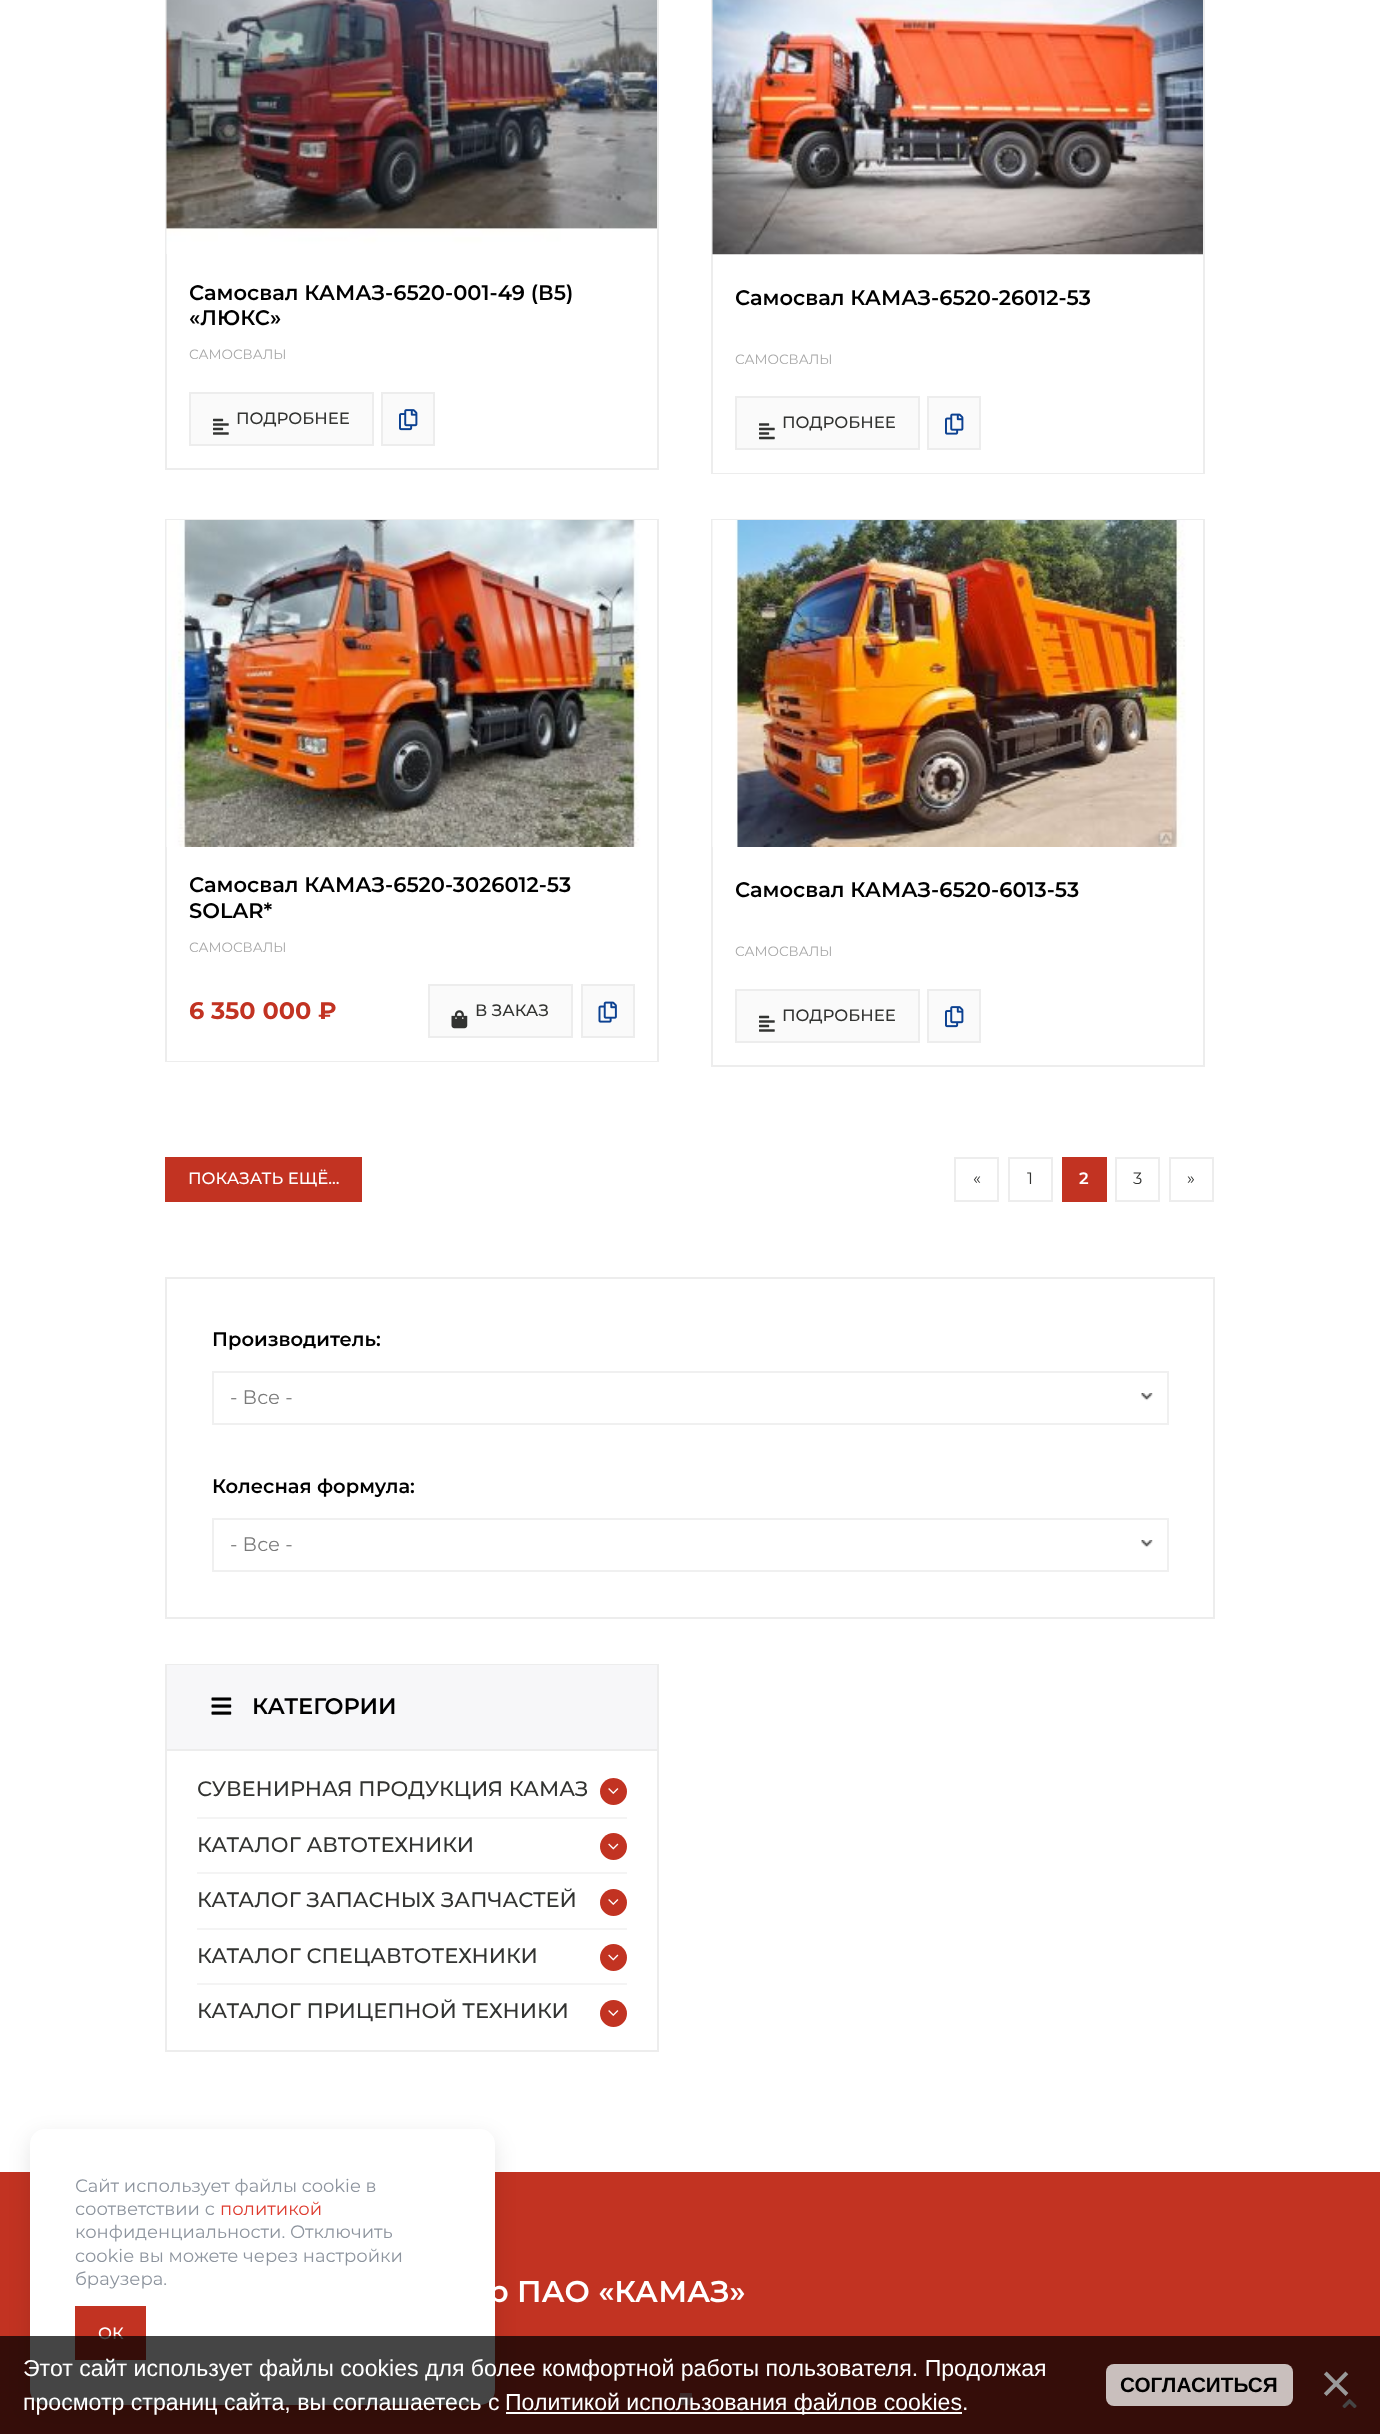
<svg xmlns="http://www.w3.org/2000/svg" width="1380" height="2434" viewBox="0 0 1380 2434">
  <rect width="100%" height="100%" fill="#fff"/>
  <path d="M166 -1h492v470H166z" fill="none" stroke="#ededed" stroke-width="2"/>
  <image x="166" y="0" width="491" height="254" href="img/1.png"/>
  <path d="M190 393h183v52H190z" fill="#fafafa" stroke="#ededed" stroke-width="2"/>
  <image x="213" y="418" width="16" height="17" href="img/2.png"/>
  <path d="M382 393h52v52H382z" fill="#fafafa" stroke="#ededed" stroke-width="2"/>
  <image x="399" y="409" width="19" height="22" href="img/3.png"/>
  <path d="M712 -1h492v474H712z" fill="none" stroke="#ededed" stroke-width="2"/>
  <image x="712" y="0" width="491" height="255" href="img/4.png"/>
  <path d="M713 472h490v1H713z" fill="#fff"/>
  <path d="M736 397h183v52H736z" fill="#fafafa" stroke="#ededed" stroke-width="2"/>
  <image x="759" y="423" width="16" height="17" href="img/5.png"/>
  <path d="M928 397h52v52H928z" fill="#fafafa" stroke="#ededed" stroke-width="2"/>
  <image x="945" y="413" width="19" height="22" href="img/6.png"/>
  <path d="M166 520h492v541H166z" fill="none" stroke="#ededed" stroke-width="2"/>
  <image x="166" y="520" width="491" height="327" href="img/7.png"/>
  <path d="M167 1060h490v1H167z" fill="#fff"/>
  <path d="M429 985h143v52H429z" fill="#fafafa" stroke="#ededed" stroke-width="2"/>
  <image x="451" y="1010" width="17" height="19" href="img/8.png"/>
  <path d="M582 985h52v52H582z" fill="#fafafa" stroke="#ededed" stroke-width="2"/>
  <image x="598" y="1001" width="19" height="22" href="img/9.png"/>
  <path d="M712 520h492v546H712z" fill="none" stroke="#ededed" stroke-width="2"/>
  <image x="712" y="520" width="491" height="327" href="img/10.png"/>
  <path d="M736 990h183v52H736z" fill="#fafafa" stroke="#ededed" stroke-width="2"/>
  <image x="759" y="1015" width="16" height="17" href="img/2.png"/>
  <path d="M928 990h52v52H928z" fill="#fafafa" stroke="#ededed" stroke-width="2"/>
  <image x="945" y="1006" width="19" height="22" href="img/3.png"/>
  <path d="M165 1157h197v45H165z" fill="#c23322"/>
  <path d="M955 1158h43v43H955z" fill="none" stroke="#ededed" stroke-width="2"/>
  <path d="M1009 1158h43v43H1009z" fill="none" stroke="#ededed" stroke-width="2"/>
  <path d="M1062 1157h45v45H1062z" fill="#c23322"/>
  <path d="M1116 1158h43v43H1116z" fill="none" stroke="#ededed" stroke-width="2"/>
  <path d="M1170 1158h43v43H1170z" fill="none" stroke="#ededed" stroke-width="2"/>
  <path d="M166 1278h1048v340H166z" fill="none" stroke="#ededed" stroke-width="2"/>
  <image x="1141" y="1393" width="12" height="8" href="img/11.png"/>
  <path d="M213 1372h955v52H213z" fill="none" stroke="#f0f0f0" stroke-width="2"/>
  <image x="1141" y="1540" width="12" height="8" href="img/11.png"/>
  <path d="M213 1519h955v52H213z" fill="none" stroke="#f0f0f0" stroke-width="2"/>
  <path d="M166 1665h492v386H166z" fill="none" stroke="#ededed" stroke-width="2"/>
  <path d="M167 1665h490v84H167z" fill="#f7f7f9"/>
  <path d="M167 1749h490v2H167z" fill="#ededed"/>
  <image x="211" y="1697" width="21" height="18" href="img/12.png"/>
  <path d="M197 1817h430v2H197z" fill="#f4f4f4"/>
  <circle cx="613.5" cy="1791.5" r="13.5" fill="#c23322"/>
  <image x="608" y="1788" width="11" height="6" href="img/13.png"/>
  <path d="M197 1872h430v2H197z" fill="#f4f4f4"/>
  <circle cx="613.5" cy="1846.5" r="13.5" fill="#c23322"/>
  <image x="608" y="1843" width="11" height="7" href="img/14.png"/>
  <path d="M197 1928h430v2H197z" fill="#f4f4f4"/>
  <circle cx="613.5" cy="1902.5" r="13.5" fill="#c23322"/>
  <image x="608" y="1899" width="11" height="6" href="img/13.png"/>
  <path d="M197 1983h430v2H197z" fill="#f4f4f4"/>
  <circle cx="613.5" cy="1957.5" r="13.5" fill="#c23322"/>
  <image x="608" y="1954" width="11" height="7" href="img/14.png"/>
  <circle cx="613.5" cy="2013.5" r="13.5" fill="#c23322"/>
  <image x="608" y="2010" width="11" height="6" href="img/13.png"/>
  <path d="M0 2172h1380v262H0z" fill="#c23322"/>
  <rect x="30" y="2136" width="465" height="276" rx="15" fill="#0000001a" filter="blur(11px)"/>
  <rect x="30" y="2129" width="465" height="276" rx="15" fill="#fff"/>
  <path d="M75 2306h71v54H75z" fill="#c23322"/>
  <path d="M680 2393h12v12H680z" fill="#e29e9e"/>
  <image x="1342" y="2399" width="15" height="10" href="img/15.png"/>
  <g font-family="Montserrat" font-size="21" font-weight="600" fill="#000">
    <text x="189" y="300">Самосвал КАМАЗ-6520-001-49 (В5)</text>
    <text x="189" y="325">«ЛЮКС»</text>
  </g>
  <text x="189" y="359" font-family="Montserrat" font-size="13.5" fill="#a7a7a7">САМОСВАЛЫ</text>
  <text x="236" y="424" font-family="Montserrat" font-size="16.5" font-weight="500" fill="#323331">ПОДРОБНЕЕ</text>
  <text x="735" y="305" font-family="Montserrat" font-size="21" font-weight="600" fill="#000">Самосвал КАМАЗ-6520-26012-53</text>
  <text x="735" y="364" font-family="Montserrat" font-size="13.5" fill="#a7a7a7">САМОСВАЛЫ</text>
  <text x="782" y="428" font-family="Montserrat" font-size="16.5" font-weight="500" fill="#323331">ПОДРОБНЕЕ</text>
  <g font-family="Montserrat" font-size="21" font-weight="600" fill="#000">
    <text x="189" y="892">Самосвал КАМАЗ-6520-3026012-53</text>
    <text x="189" y="918">SOLAR*</text>
  </g>
  <text x="189" y="952" font-family="Montserrat" font-size="13.5" fill="#a7a7a7">САМОСВАЛЫ</text>
  <text x="189" y="1019" font-family="Montserrat" font-size="24" font-weight="bold" fill="#c23322">6 350 000 ₽</text>
  <text x="475" y="1016" font-family="Montserrat" font-size="16.5" font-weight="500" fill="#323331">В ЗАКАЗ</text>
  <text x="735" y="897" font-family="Montserrat" font-size="21" font-weight="600" fill="#000">Самосвал КАМАЗ-6520-6013-53</text>
  <text x="735" y="956" font-family="Montserrat" font-size="13.5" fill="#a7a7a7">САМОСВАЛЫ</text>
  <text x="782" y="1021" font-family="Montserrat" font-size="16.5" font-weight="500" fill="#323331">ПОДРОБНЕЕ</text>
  <text x="188" y="1184" font-family="Montserrat" font-size="16.5" font-weight="500" fill="#fff">ПОКАЗАТЬ ЕЩЁ...</text>
  <g font-family="Montserrat" font-size="16.5" fill="#323331">
    <text x="973" y="1184">«</text>
    <text x="1027" y="1184">1</text>
  </g>
  <text x="1079" y="1184" font-family="Montserrat" font-size="16.5" font-weight="600" fill="#fff">2</text>
  <g font-family="Montserrat" font-size="16.5" fill="#323331">
    <text x="1133" y="1184">3</text>
    <text x="1187" y="1184">»</text>
  </g>
  <text x="212" y="1346" font-family="Montserrat" font-size="19.5" font-weight="600" fill="#000">Производитель:</text>
  <text x="230" y="1404" font-family="Montserrat" font-size="19.5" fill="#7a7a7a">- Все -</text>
  <text x="212" y="1493" font-family="Montserrat" font-size="19.5" font-weight="600" fill="#000">Колесная формула:</text>
  <text x="230" y="1551" font-family="Montserrat" font-size="19.5" fill="#7a7a7a">- Все -</text>
  <text x="252" y="1714" font-family="Montserrat" font-size="22.5" font-weight="600" fill="#000">КАТЕГОРИИ</text>
  <g font-family="Montserrat" font-size="21" font-weight="500" fill="#323331">
    <text x="197" y="1796">СУВЕНИРНАЯ ПРОДУКЦИЯ КАМАЗ</text>
    <text x="197" y="1852">КАТАЛОГ АВТОТЕХНИКИ</text>
    <text x="197" y="1907">КАТАЛОГ ЗАПАСНЫХ ЗАПЧАСТЕЙ</text>
    <text x="197" y="1963">КАТАЛОГ СПЕЦАВТОТЕХНИКИ</text>
    <text x="197" y="2018">КАТАЛОГ ПРИЦЕПНОЙ ТЕХНИКИ</text>
  </g>
  <g font-family="Montserrat" font-size="18" fill="#8d949e">
    <text x="75" y="2192">Сайт использует файлы cookie в</text>
    <text x="75" y="2215">соответствии с</text>
  </g>
  <text x="220" y="2215" font-family="Montserrat" font-size="18" fill="#de3b2f">политикой</text>
  <g font-family="Montserrat" font-size="18" fill="#8d949e">
    <text x="75" y="2238">конфиденциальности. Отключить</text>
    <text x="75" y="2262">cookie вы можете через настройки</text>
    <text x="75" y="2285">браузера.</text>
  </g>
  <text x="98" y="2339" font-family="Montserrat" font-size="16.5" font-weight="500" fill="#fff">ОК</text>
  <text x="488" y="2302" font-family="Montserrat" font-size="30" font-weight="600" fill="#fff">р ПАО «КАМАЗ»</text>
  <path d="M0 2336h1380v98H0z" fill="#000000ba"/>
  <g font-family="Liberation Sans" font-size="23.1" fill="#fff">
    <text x="23" y="2376">Этот сайт использует файлы cookies для более комфортной работы пользователя. Продолжая</text>
    <text x="23" y="2410">просмотр страниц сайта, вы соглашаетесь с</text>
  </g>
  <path d="M506 2412h456v2H506z" fill="#fff"/>
  <text x="505" y="2410" font-family="Liberation Sans" font-size="23.1" fill="#fff">Политикой использования файлов cookies.</text>
  <rect x="1106" y="2364" width="187" height="42" rx="8" fill="#c9bfbd"/>
  <text x="1120" y="2392" font-family="Liberation Sans" font-size="20.75" font-weight="bold" fill="#000">СОГЛАСИТЬСЯ</text>
  <text x="1320" y="2402" font-family="Liberation Sans" font-size="55" fill="#999">×</text>
</svg>
